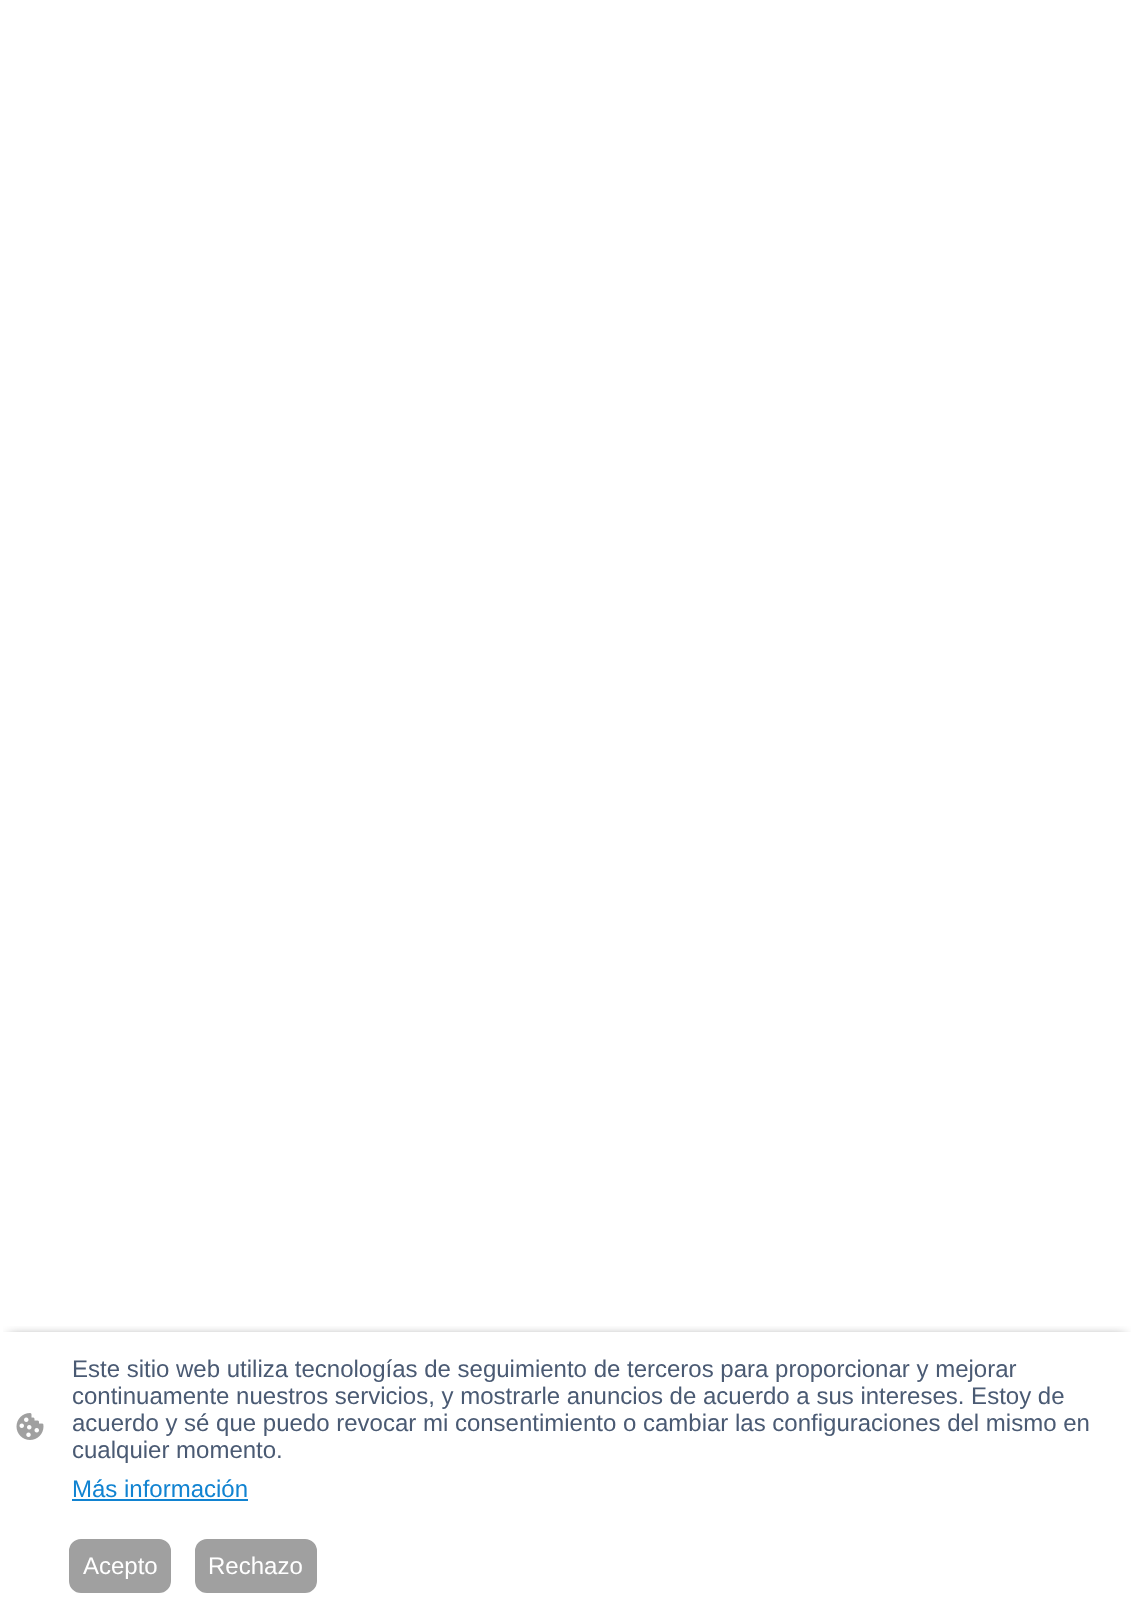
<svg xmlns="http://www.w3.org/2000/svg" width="1134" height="1604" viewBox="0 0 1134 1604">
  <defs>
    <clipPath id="clip1"><path d="M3 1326h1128v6H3z"/></clipPath>
  </defs>
  <rect width="100%" height="100%" fill="#fff"/>
  <g clip-path="url(#clip1)">
    <path d="M9 1337h1116v255H9z" fill="#000000a1" filter="blur(6px)"/>
  </g>
  <image x="16" y="1413" width="28" height="27" href="img/1.png"/>
  <path d="M72 1499h176v2H72z" fill="#1183d1"/>
  <rect x="70" y="1540" width="100" height="52" rx="11" fill="#a0a0a0" stroke="#a0a0a0" stroke-width="2"/>
  <rect x="196" y="1540" width="120" height="52" rx="11" fill="#a0a0a0" stroke="#a0a0a0" stroke-width="2"/>
  <g font-family="Liberation Sans" font-size="24" fill="#4a5a73">
    <text x="72" y="1377">Este sitio web utiliza tecnologías de seguimiento de terceros para proporcionar y mejorar</text>
    <text x="72" y="1404">continuamente nuestros servicios, y mostrarle anuncios de acuerdo a sus intereses. Estoy de</text>
    <text x="72" y="1431">acuerdo y sé que puedo revocar mi consentimiento o cambiar las configuraciones del mismo en</text>
    <text x="72" y="1458">cualquier momento.</text>
  </g>
  <text x="72" y="1497" font-family="Liberation Sans" font-size="24" fill="#1183d1">Más información</text>
  <g font-family="Liberation Sans" font-size="24" fill="#fff">
    <text x="83" y="1574">Acepto</text>
    <text x="208" y="1574">Rechazo</text>
  </g>
</svg>
